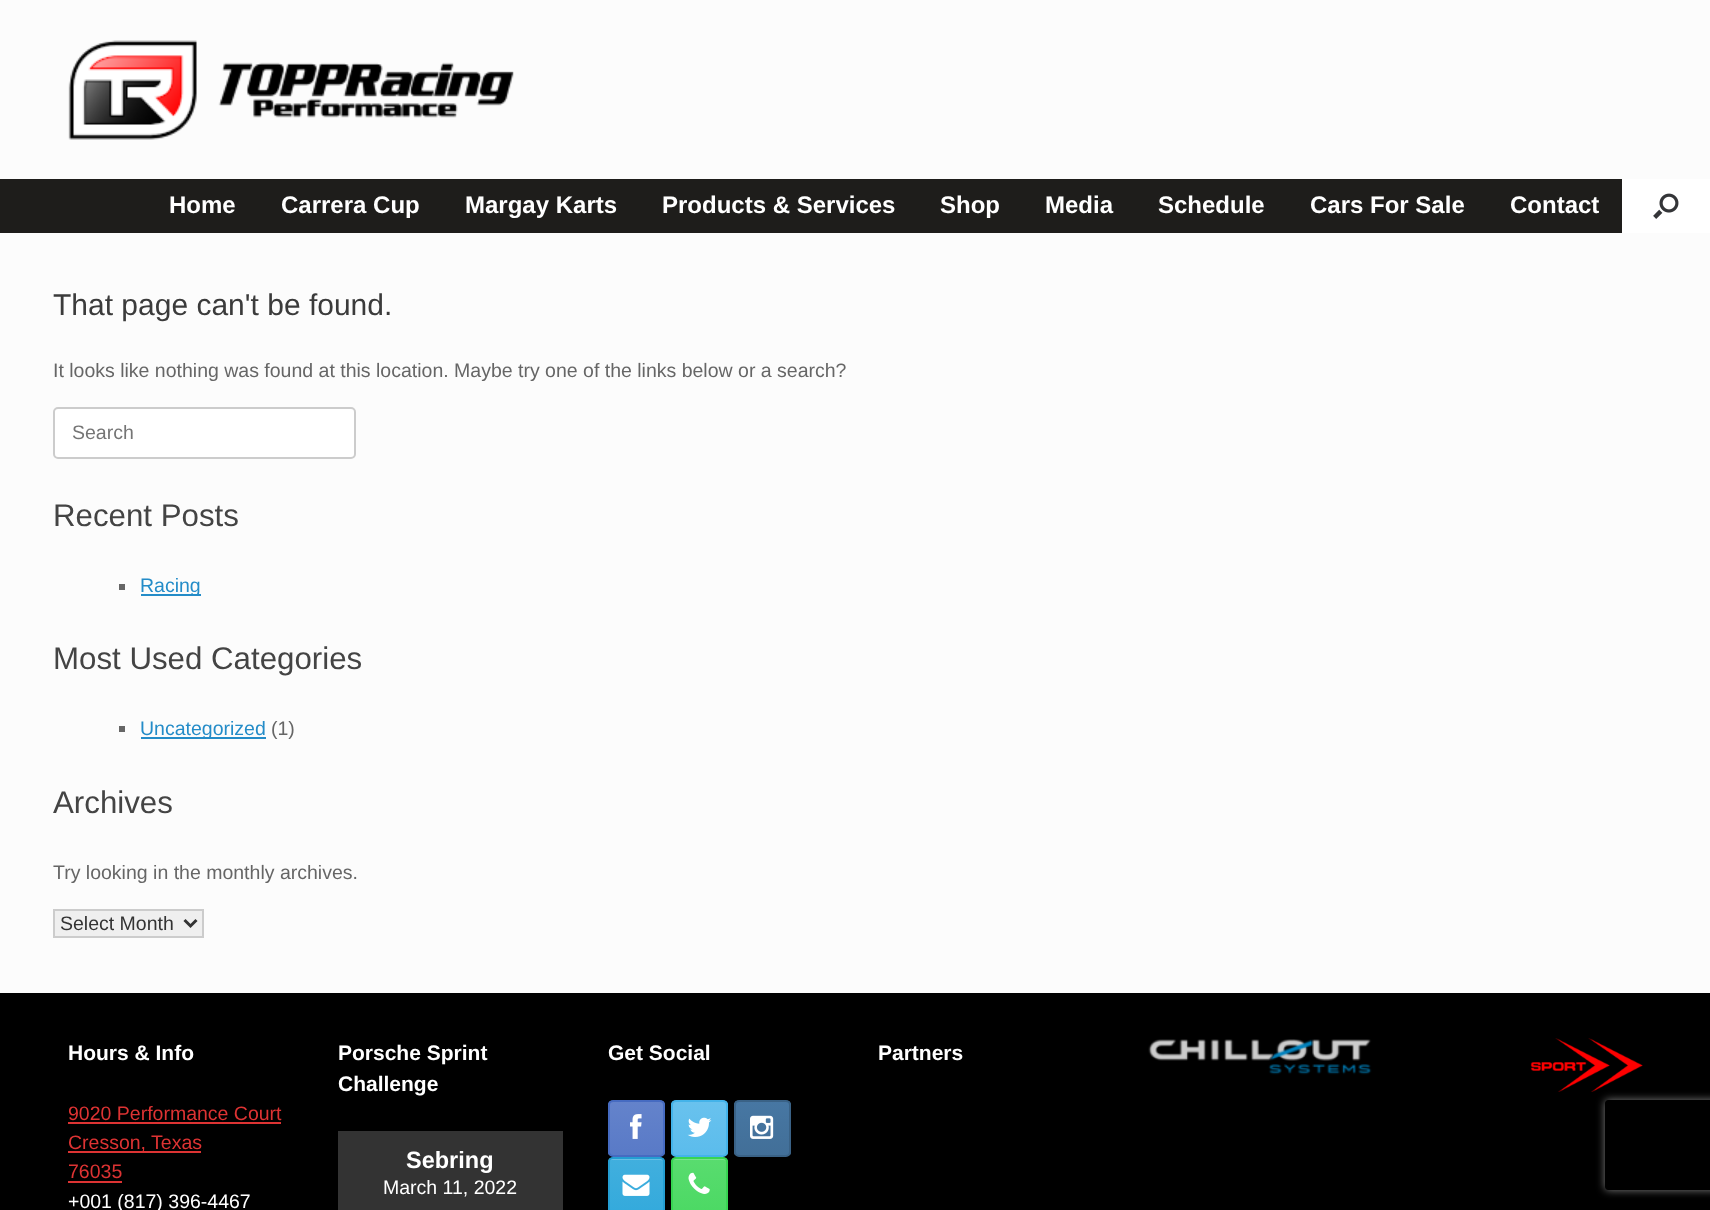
<svg xmlns="http://www.w3.org/2000/svg" width="1710" height="1210" viewBox="0 0 1710 1210">
  <defs>
    <clipPath id="clip1"><rect x="608" y="1100" width="57" height="57" rx="5"/></clipPath>
    <linearGradient id="g1" gradientUnits="userSpaceOnUse" x1="609" y1="1155" x2="609" y2="1101"><stop offset="0" stop-color="#597ac7"/><stop offset="1" stop-color="#6483cb"/></linearGradient>
    <clipPath id="clip2"><rect x="671" y="1100" width="57" height="57" rx="5"/></clipPath>
    <linearGradient id="g2" gradientUnits="userSpaceOnUse" x1="672" y1="1155" x2="672" y2="1101"><stop offset="0" stop-color="#5bbcec"/><stop offset="1" stop-color="#69c2ee"/></linearGradient>
    <clipPath id="clip3"><rect x="734" y="1100" width="57" height="57" rx="5"/></clipPath>
    <linearGradient id="g3" gradientUnits="userSpaceOnUse" x1="735" y1="1155" x2="735" y2="1101"><stop offset="0" stop-color="#426f98"/><stop offset="1" stop-color="#4777a3"/></linearGradient>
    <clipPath id="clip4"><rect x="608" y="1157" width="57" height="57" rx="5"/></clipPath>
    <linearGradient id="g4" gradientUnits="userSpaceOnUse" x1="609" y1="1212" x2="609" y2="1158"><stop offset="0" stop-color="#34aadc"/><stop offset="1" stop-color="#41afde"/></linearGradient>
    <clipPath id="clip5"><rect x="671" y="1157" width="57" height="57" rx="5"/></clipPath>
    <linearGradient id="g5" gradientUnits="userSpaceOnUse" x1="672" y1="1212" x2="672" y2="1158"><stop offset="0" stop-color="#4cd964"/><stop offset="1" stop-color="#59dc6f"/></linearGradient>
    <clipPath id="clip6"><path d="M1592 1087H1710V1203H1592ZM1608 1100H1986C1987.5 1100 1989 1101.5 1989 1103V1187C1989 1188.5 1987.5 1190 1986 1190H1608C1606.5 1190 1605 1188.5 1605 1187V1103C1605 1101.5 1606.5 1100 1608 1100Z" clip-rule="evenodd"/></clipPath>
  </defs>
  <rect width="100%" height="100%" fill="#000"/>
  <path d="M0 0h1710v179H0z" fill="#fcfcfc"/>
  <image x="68" y="40" width="446" height="100" href="img/1.png"/>
  <path d="M0 179h1622v54H0z" fill="#1e1d1b"/>
  <path d="M1622 179h88v54H1622z" fill="#fff"/>
  <image x="1653" y="193" width="26" height="26" href="img/2.png"/>
  <path d="M0 233h1710v760H0z" fill="#fcfcfc"/>
  <rect x="54" y="408" width="301" height="50" rx="4" fill="#fff" stroke="#ccc" stroke-width="2"/>
  <path d="M119 584h6v6H119z" fill="#666"/>
  <path d="M141 594h60v2H141z" fill="#248cc8"/>
  <path d="M119 726h6v6H119z" fill="#666"/>
  <path d="M141 737h125v2H141z" fill="#248cc8"/>
  <path d="M54 910h149v27H54z" fill="#efefef" stroke="#ccc" stroke-width="2"/>
  <path d="M184.5 920L190.5 926L196.5 920" fill="none" stroke="#333" stroke-width="3"/>
  <path d="M68 1122h213v2H68z" fill="#d33"/>
  <path d="M68 1151h133v2H68z" fill="#d33"/>
  <path d="M68 1181h54v2H68z" fill="#d33"/>
  <path d="M338 1131h225v79H338z" fill="#333"/>
  <g clip-path="url(#clip1)">
    <path d="M608 1101h57v54H608z" fill="url(#g1)"/>
  </g>
  <rect x="609" y="1101" width="55" height="55" rx="4" fill="none" stroke="#466bc1" stroke-width="2"/>
  <image x="630" y="1114" width="12" height="25" href="img/3.png"/>
  <g clip-path="url(#clip2)">
    <path d="M671 1101h57v54H671z" fill="url(#g2)"/>
  </g>
  <rect x="672" y="1101" width="55" height="55" rx="4" fill="none" stroke="#44b3e9" stroke-width="2"/>
  <image x="687" y="1117" width="25" height="20" href="img/4.png"/>
  <g clip-path="url(#clip3)">
    <path d="M734 1101h57v54H734z" fill="url(#g3)"/>
  </g>
  <rect x="735" y="1101" width="55" height="55" rx="4" fill="none" stroke="#3a6286" stroke-width="2"/>
  <image x="750" y="1115" width="24" height="24" href="img/5.png"/>
  <g clip-path="url(#clip4)">
    <path d="M608 1158h57v52H608z" fill="url(#g4)"/>
  </g>
  <path d="M612 1160H660C662 1160 663 1161 663 1162C663 1156 656 1158 652 1158H620C616 1158 609 1156 609 1162C609 1161 610 1160 612 1160Z" fill="#67bfe5"/>
  <rect x="609" y="1158" width="55" height="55" rx="4" fill="none" stroke="#249ed2" stroke-width="2"/>
  <image x="622" y="1174" width="28" height="22" href="img/6.png"/>
  <g clip-path="url(#clip5)">
    <path d="M671 1158h57v52H671z" fill="url(#g5)"/>
  </g>
  <path d="M675 1160H723C725 1160 726 1161 726 1162C726 1156 719 1158 715 1158H683C679 1158 672 1156 672 1162C672 1161 673 1160 675 1160Z" fill="#7ae38c"/>
  <rect x="672" y="1158" width="55" height="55" rx="4" fill="none" stroke="#37d552" stroke-width="2"/>
  <image x="688" y="1172" width="22" height="22" href="img/7.png"/>
  <image x="1148" y="1039" width="224" height="36" href="img/8.png"/>
  <image x="1530" y="1038" width="113" height="54" href="img/9.png"/>
  <g clip-path="url(#clip6)">
    <rect x="1605" y="1100" width="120" height="90" rx="3" fill="#808080" filter="blur(4px)"/>
  </g>
  <g font-family="Liberation Sans" font-size="24" font-weight="bold" fill="#fff">
    <text x="169" y="213">Home</text>
    <text x="281" y="213">Carrera Cup</text>
    <text x="465" y="213">Margay Karts</text>
    <text x="662" y="213">Products &amp; Services</text>
    <text x="940" y="213">Shop</text>
    <text x="1045" y="213">Media</text>
    <text x="1158" y="213">Schedule</text>
    <text x="1310" y="213">Cars For Sale</text>
    <text x="1510" y="213">Contact</text>
  </g>
  <text x="53" y="315" font-family="Liberation Sans" font-size="30" fill="#3b3b3b">That page can't be found.</text>
  <text x="53" y="377" font-family="Liberation Sans" font-size="19.5" fill="#666">It looks like nothing was found at this location. Maybe try one of the links below or a search?</text>
  <text x="72" y="439" font-family="Liberation Sans" font-size="19.5" fill="#757575">Search</text>
  <text x="53" y="526" font-family="Liberation Sans" font-size="31.25" fill="#444">Recent Posts</text>
  <text x="140" y="592" font-family="Liberation Sans" font-size="19.5" fill="#248cc8">Racing</text>
  <text x="53" y="669" font-family="Liberation Sans" font-size="31.25" fill="#444">Most Used Categories</text>
  <text x="140" y="735" font-family="Liberation Sans" font-size="19.5" fill="#248cc8">Uncategorized</text>
  <text x="271" y="735" font-family="Liberation Sans" font-size="19.5" fill="#666">(1)</text>
  <text x="53" y="813" font-family="Liberation Sans" font-size="31.25" fill="#444">Archives</text>
  <text x="53" y="879" font-family="Liberation Sans" font-size="19.5" fill="#666">Try looking in the monthly archives.</text>
  <text x="60" y="930" font-family="Liberation Sans" font-size="19.5" fill="#333">Select Month</text>
  <text x="68" y="1060" font-family="Liberation Sans" font-size="21" font-weight="bold" fill="#fff">Hours &amp; Info</text>
  <g font-family="Liberation Sans" font-size="19.5" fill="#d33">
    <text x="68" y="1120">9020 Performance Court</text>
    <text x="68" y="1149">Cresson, Texas</text>
    <text x="68" y="1178">76035</text>
  </g>
  <text x="68" y="1208" font-family="Liberation Sans" font-size="19.5" fill="#fff">+001 (817) 396-4467</text>
  <g font-family="Liberation Sans" font-size="21" font-weight="bold" fill="#fff">
    <text x="338" y="1060">Porsche Sprint</text>
    <text x="338" y="1091">Challenge</text>
  </g>
  <text x="406" y="1168" font-family="Liberation Sans" font-size="23.5" font-weight="bold" fill="#fff">Sebring</text>
  <text x="383" y="1194" font-family="Liberation Sans" font-size="19.5" fill="#fff">March 11, 2022</text>
  <g font-family="Liberation Sans" font-size="21" font-weight="bold" fill="#fff">
    <text x="608" y="1060">Get Social</text>
    <text x="878" y="1060">Partners</text>
  </g>
</svg>
